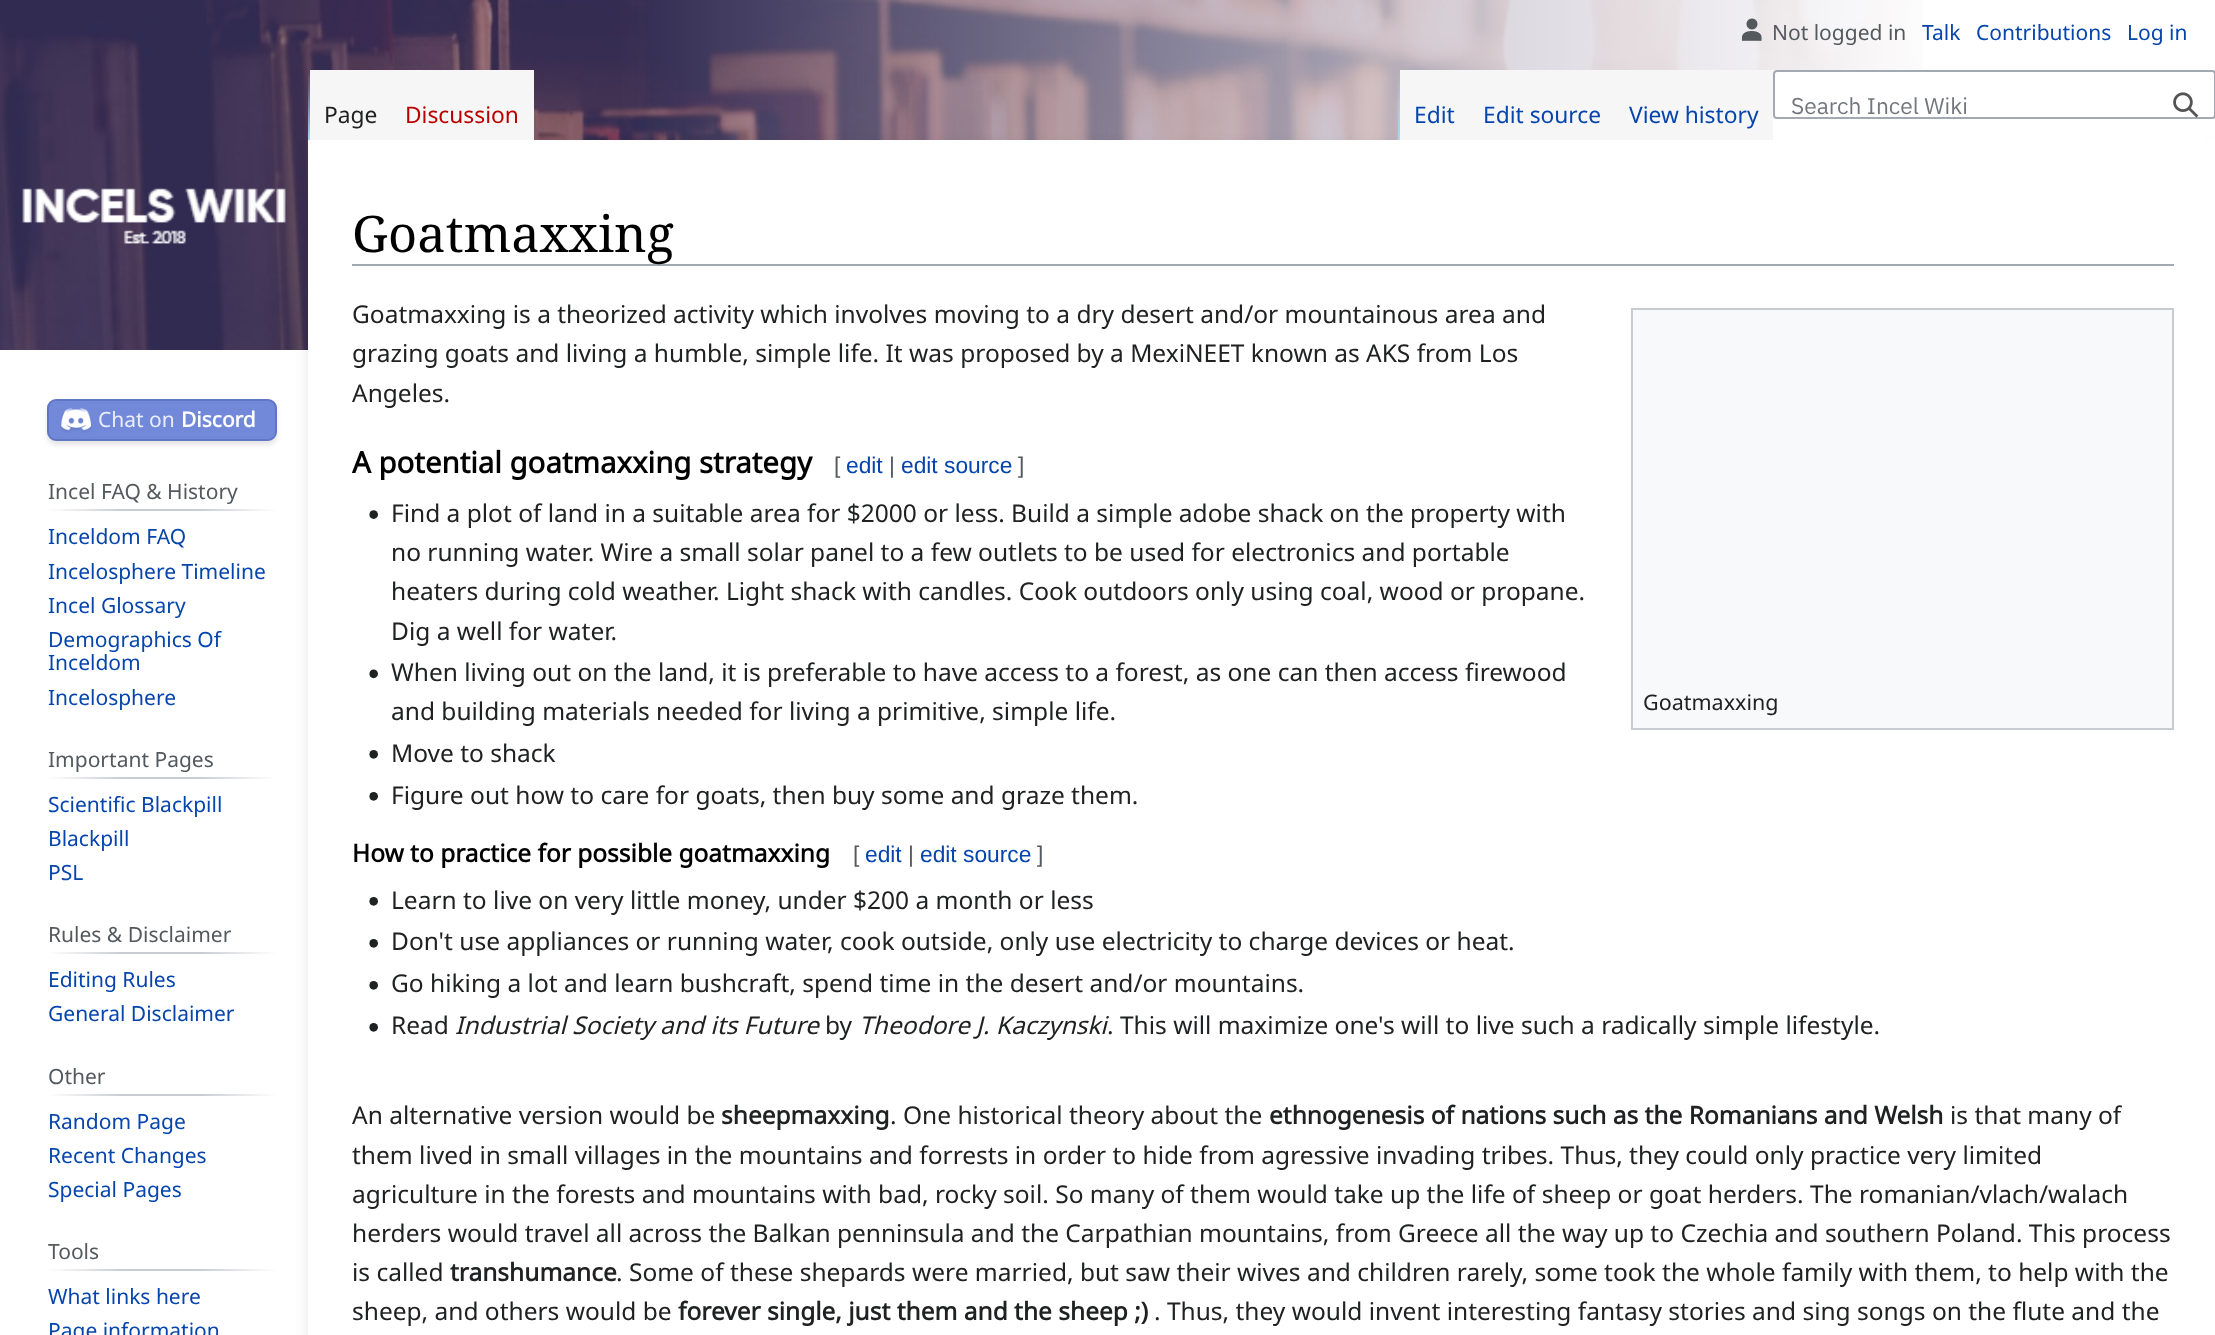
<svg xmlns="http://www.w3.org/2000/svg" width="2215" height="1335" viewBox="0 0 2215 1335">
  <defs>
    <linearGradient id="g1" gradientUnits="userSpaceOnUse" x1="309" y1="70" x2="309" y2="140"><stop offset="0" stop-color="#a7d7f9" stop-opacity="0"/><stop offset="1" stop-color="#a7d7f9"/></linearGradient>
    <linearGradient id="g2" gradientUnits="userSpaceOnUse" x1="1399" y1="70" x2="1399" y2="140"><stop offset="0" stop-color="#a7d7f9" stop-opacity="0"/><stop offset="1" stop-color="#a7d7f9"/></linearGradient>
    <linearGradient id="g3" gradientUnits="userSpaceOnUse" x1="47" y1="510" x2="277" y2="510"><stop offset="0" stop-color="#fff"/><stop offset="0.33" stop-color="#c8ccd1"/><stop offset="0.66" stop-color="#c8ccd1"/><stop offset="1" stop-color="#fff"/></linearGradient>
    <linearGradient id="g4" gradientUnits="userSpaceOnUse" x1="47" y1="778" x2="277" y2="778"><stop offset="0" stop-color="#fff"/><stop offset="0.33" stop-color="#c8ccd1"/><stop offset="0.66" stop-color="#c8ccd1"/><stop offset="1" stop-color="#fff"/></linearGradient>
    <linearGradient id="g5" gradientUnits="userSpaceOnUse" x1="47" y1="953" x2="277" y2="953"><stop offset="0" stop-color="#fff"/><stop offset="0.33" stop-color="#c8ccd1"/><stop offset="0.66" stop-color="#c8ccd1"/><stop offset="1" stop-color="#fff"/></linearGradient>
    <linearGradient id="g6" gradientUnits="userSpaceOnUse" x1="47" y1="1095" x2="277" y2="1095"><stop offset="0" stop-color="#fff"/><stop offset="0.33" stop-color="#c8ccd1"/><stop offset="0.66" stop-color="#c8ccd1"/><stop offset="1" stop-color="#fff"/></linearGradient>
    <linearGradient id="g7" gradientUnits="userSpaceOnUse" x1="47" y1="1270" x2="277" y2="1270"><stop offset="0" stop-color="#fff"/><stop offset="0.33" stop-color="#c8ccd1"/><stop offset="0.66" stop-color="#c8ccd1"/><stop offset="1" stop-color="#fff"/></linearGradient>
  </defs>
  <rect width="100%" height="100%" fill="#fff"/>
  <image x="0" y="0" width="1923" height="350" href="img/1.png"/>
  <image x="1741" y="18" width="21" height="23" href="img/2.png"/>
  <path d="M312 151h1900v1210H312z" fill="#00000026" filter="blur(8.5px)"/>
  <path d="M308 70h2v70H308z" fill="url(#g1)"/>
  <path d="M310 70h224v70H310z" fill="#f6f6f6"/>
  <path d="M1398 70h2v70H1398z" fill="url(#g2)"/>
  <path d="M1400 70h373v70H1400z" fill="#f6f6f6"/>
  <path d="M1773 70h433v70H1773z" fill="#fff"/>
  <rect x="1774" y="71" width="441" height="47" rx="3" fill="none" stroke="#a2a9b1" stroke-width="2"/>
  <image x="2173" y="92" width="26" height="26" href="img/3.png"/>
  <image x="22" y="188" width="264" height="56" href="img/4.png"/>
  <rect x="47" y="403" width="230" height="42" rx="9" fill="#0000001a" filter="blur(2.5px)"/>
  <rect x="48" y="400" width="228" height="40" rx="8" fill="#7289da" stroke="#5e76c6" stroke-width="2"/>
  <image x="60" y="407" width="32" height="26" href="img/5.png"/>
  <path d="M47 509h230v2H47z" fill="url(#g3)"/>
  <path d="M47 777h230v2H47z" fill="url(#g4)"/>
  <path d="M47 952h230v2H47z" fill="url(#g5)"/>
  <path d="M47 1094h230v2H47z" fill="url(#g6)"/>
  <path d="M47 1269h230v2H47z" fill="url(#g7)"/>
  <path d="M308 140h1907v1195H308z" fill="#fff"/>
  <path d="M352 264h1822v2H352z" fill="#a2a9b1"/>
  <image x="369" y="510" width="9" height="9" href="img/6.png"/>
  <image x="369" y="669" width="9" height="10" href="img/7.png"/>
  <image x="369" y="750" width="9" height="9" href="img/8.png"/>
  <image x="369" y="792" width="9" height="9" href="img/8.png"/>
  <path d="M1632 309h541v420H1632z" fill="#f8f9fa" stroke="#c8ccd1" stroke-width="2"/>
  <image x="369" y="897" width="9" height="9" href="img/8.png"/>
  <image x="369" y="939" width="9" height="9" href="img/8.png"/>
  <image x="369" y="981" width="9" height="9" href="img/8.png"/>
  <image x="369" y="1023" width="9" height="9" href="img/8.png"/>
  <text x="1772" y="40" font-family="Noto Sans" font-size="21" fill="#54595d">Not logged in</text>
  <g font-family="Noto Sans" font-size="21" fill="#0645ad">
    <text x="1922" y="40">Talk</text>
    <text x="1976" y="40">Contributions</text>
    <text x="2127" y="40">Log in</text>
  </g>
  <text x="324" y="123" font-family="Noto Sans" font-size="22.75" fill="#202122">Page</text>
  <text x="405" y="123" font-family="Noto Sans" font-size="22.75" fill="#ba0000">Discussion</text>
  <g font-family="Noto Sans" font-size="22.75" fill="#0645ad">
    <text x="1414" y="123">Edit</text>
    <text x="1483" y="123">Edit source</text>
    <text x="1629" y="123">View history</text>
  </g>
  <text x="1791" y="114" font-family="IBM Plex Sans" font-size="22.75" fill="#72777d">Search Incel Wiki</text>
  <text x="98" y="427" font-family="Noto Sans" font-size="21" fill="#eaedf9">Chat on</text>
  <text x="181" y="427" font-family="Noto Sans" font-size="21" font-weight="bold" fill="#fff">Discord</text>
  <text x="48" y="499" font-family="Noto Sans" font-size="21" fill="#54595d">Incel FAQ &amp; History</text>
  <g font-family="Noto Sans" font-size="21" fill="#0645ad">
    <text x="48" y="544">Inceldom FAQ</text>
    <text x="48" y="579">Incelosphere Timeline</text>
    <text x="48" y="613">Incel Glossary</text>
    <text x="48" y="647">Demographics Of</text>
    <text x="48" y="670">Inceldom</text>
    <text x="48" y="705">Incelosphere</text>
  </g>
  <text x="48" y="767" font-family="Noto Sans" font-size="21" fill="#54595d">Important Pages</text>
  <g font-family="Noto Sans" font-size="21" fill="#0645ad">
    <text x="48" y="812">Scientific Blackpill</text>
    <text x="48" y="846">Blackpill</text>
    <text x="48" y="880">PSL</text>
  </g>
  <text x="48" y="942" font-family="Noto Sans" font-size="21" fill="#54595d">Rules &amp; Disclaimer</text>
  <g font-family="Noto Sans" font-size="21" fill="#0645ad">
    <text x="48" y="987">Editing Rules</text>
    <text x="48" y="1021">General Disclaimer</text>
  </g>
  <text x="48" y="1084" font-family="Noto Sans" font-size="21" fill="#54595d">Other</text>
  <g font-family="Noto Sans" font-size="21" fill="#0645ad">
    <text x="48" y="1129">Random Page</text>
    <text x="48" y="1163">Recent Changes</text>
    <text x="48" y="1197">Special Pages</text>
  </g>
  <text x="48" y="1259" font-family="Noto Sans" font-size="21" fill="#54595d">Tools</text>
  <g font-family="Noto Sans" font-size="21" fill="#0645ad">
    <text x="48" y="1304">What links here</text>
    <text x="48" y="1338">Page information</text>
  </g>
  <text x="352" y="252" font-family="Noto Serif" font-size="50.5" fill="#000">Goatmaxxing</text>
  <g font-family="Noto Sans" font-size="24.5" fill="#202122">
    <text x="352" y="323">Goatmaxxing is a theorized activity which involves moving to a dry desert and/or mountainous area and</text>
    <text x="352" y="362">grazing goats and living a humble, simple life. It was proposed by a MexiNEET known as AKS from Los</text>
    <text x="352" y="402">Angeles.</text>
  </g>
  <text x="352" y="473" font-family="Noto Sans" font-size="29.4" font-weight="bold" fill="#000">A potential goatmaxxing strategy</text>
  <text x="834" y="473" font-family="Liberation Sans" font-size="22.75" fill="#54595d">[</text>
  <text x="846" y="473" font-family="Liberation Sans" font-size="22.75" fill="#0645ad">edit</text>
  <text x="889" y="473" font-family="Liberation Sans" font-size="22.75" fill="#54595d">|</text>
  <text x="901" y="473" font-family="Liberation Sans" font-size="22.75" fill="#0645ad">edit source</text>
  <text x="1018" y="473" font-family="Liberation Sans" font-size="22.75" fill="#54595d">]</text>
  <g font-family="Noto Sans" font-size="24.5" fill="#202122">
    <text x="391" y="522">Find a plot of land in a suitable area for $2000 or less. Build a simple adobe shack on the property with</text>
    <text x="391" y="561">no running water. Wire a small solar panel to a few outlets to be used for electronics and portable</text>
    <text x="391" y="600">heaters during cold weather. Light shack with candles. Cook outdoors only using coal, wood or propane.</text>
    <text x="391" y="640">Dig a well for water.</text>
    <text x="391" y="681">When living out on the land, it is preferable to have access to a forest, as one can then access firewood</text>
    <text x="391" y="720">and building materials needed for living a primitive, simple life.</text>
    <text x="391" y="762">Move to shack</text>
    <text x="391" y="804">Figure out how to care for goats, then buy some and graze them.</text>
  </g>
  <text x="1643" y="710" font-family="Noto Sans" font-size="21.5" fill="#202122">Goatmaxxing</text>
  <text x="352" y="862" font-family="Noto Sans" font-size="24.5" font-weight="bold" fill="#000">How to practice for possible goatmaxxing</text>
  <text x="853" y="862" font-family="Liberation Sans" font-size="22.75" fill="#54595d">[</text>
  <text x="865" y="862" font-family="Liberation Sans" font-size="22.75" fill="#0645ad">edit</text>
  <text x="908" y="862" font-family="Liberation Sans" font-size="22.75" fill="#54595d">|</text>
  <text x="920" y="862" font-family="Liberation Sans" font-size="22.75" fill="#0645ad">edit source</text>
  <text x="1037" y="862" font-family="Liberation Sans" font-size="22.75" fill="#54595d">]</text>
  <g font-family="Noto Sans" font-size="24.5" fill="#202122">
    <text x="391" y="909">Learn to live on very little money, under $200 a month or less</text>
    <text x="391" y="950">Don't use appliances or running water, cook outside, only use electricity to charge devices or heat.</text>
    <text x="391" y="992">Go hiking a lot and learn bushcraft, spend time in the desert and/or mountains.</text>
    <text x="391" y="1034">Read</text>
  </g>
  <text x="455" y="1034" font-family="Noto Sans" font-size="24.5" font-style="italic" fill="#202122">Industrial Society and its Future</text>
  <text x="825" y="1034" font-family="Noto Sans" font-size="24.5" fill="#202122">by</text>
  <text x="859" y="1034" font-family="Noto Sans" font-size="24.5" font-style="italic" fill="#202122">Theodore J. Kaczynski</text>
  <g font-family="Noto Sans" font-size="24.5" fill="#202122">
    <text x="1107" y="1034">. This will maximize one's will to live such a radically simple lifestyle.</text>
    <text x="352" y="1124">An alternative version would be</text>
  </g>
  <text x="721" y="1124" font-family="Noto Sans" font-size="24.5" font-weight="bold" fill="#202122">sheepmaxxing</text>
  <text x="890" y="1124" font-family="Noto Sans" font-size="24.5" fill="#202122">. One historical theory about the</text>
  <text x="1269" y="1124" font-family="Noto Sans" font-size="24.5" font-weight="bold" fill="#202122">ethnogenesis of nations such as the Romanians and Welsh</text>
  <g font-family="Noto Sans" font-size="24.5" fill="#202122">
    <text x="1950" y="1124">is that many of</text>
    <text x="352" y="1164">them lived in small villages in the mountains and forrests in order to hide from agressive invading tribes. Thus, they could only practice very limited</text>
    <text x="352" y="1203">agriculture in the forests and mountains with bad, rocky soil. So many of them would take up the life of sheep or goat herders. The romanian/vlach/walach</text>
    <text x="352" y="1242">herders would travel all across the Balkan penninsula and the Carpathian mountains, from Greece all the way up to Czechia and southern Poland. This process</text>
    <text x="352" y="1281">is called</text>
  </g>
  <text x="450" y="1281" font-family="Noto Sans" font-size="24.5" font-weight="bold" fill="#202122">transhumance</text>
  <g font-family="Noto Sans" font-size="24.5" fill="#202122">
    <text x="616" y="1281">. Some of these shepards were married, but saw their wives and children rarely, some took the whole family with them, to help with the</text>
    <text x="352" y="1320">sheep, and others would be</text>
  </g>
  <text x="678" y="1320" font-family="Noto Sans" font-size="24.5" font-weight="bold" fill="#202122">forever single, just them and the sheep ;)</text>
  <text x="1154" y="1320" font-family="Noto Sans" font-size="24.5" fill="#202122">. Thus, they would invent interesting fantasy stories and sing songs on the flute and the</text>
</svg>
